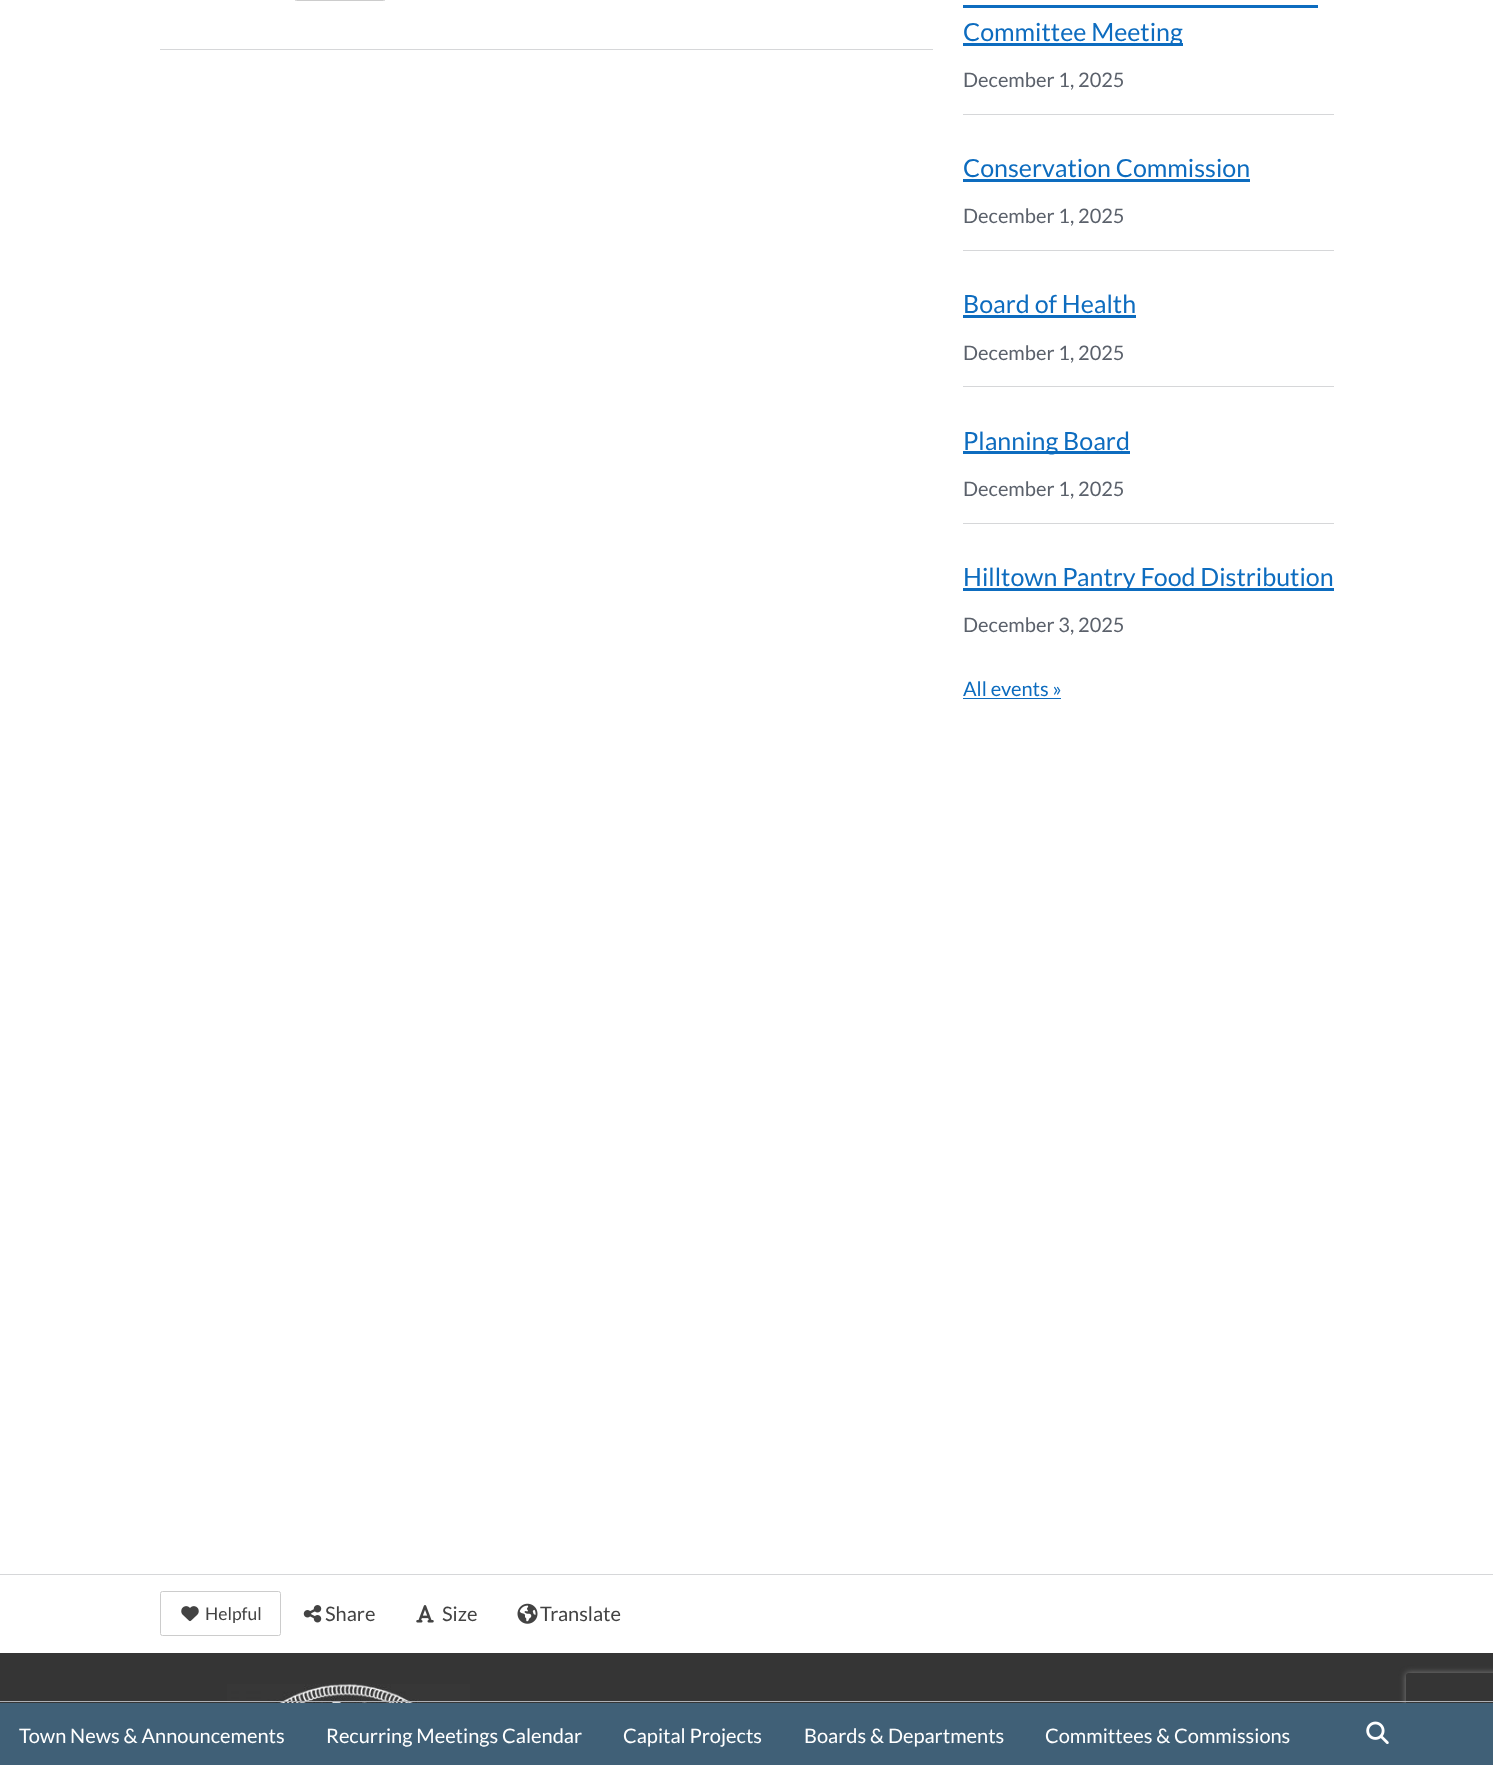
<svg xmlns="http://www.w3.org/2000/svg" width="1493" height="1765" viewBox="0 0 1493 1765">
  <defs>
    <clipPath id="clip1"><path d="M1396 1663H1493V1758H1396ZM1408.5 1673H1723.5C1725 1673 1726 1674 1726 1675.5V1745.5C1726 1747 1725 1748 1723.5 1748H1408.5C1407 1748 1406 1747 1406 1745.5V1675.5C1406 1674 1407 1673 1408.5 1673Z" clip-rule="evenodd"/></clipPath>
  </defs>
  <rect width="100%" height="100%" fill="#fff"/>
  <rect x="294.5" y="-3.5" width="91" height="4" rx="2" fill="none" stroke="#ccc"/>
  <path d="M160 49h773v1H160z" fill="#d6d7d9"/>
  <path d="M963 5h355v3H963z" fill="#0d6cbf"/>
  <path d="M963 43h220v3H963z" fill="#0d6cbf"/>
  <path d="M963 114h371v1H963z" fill="#d6d7d9"/>
  <path d="M963 179h287v3H963z" fill="#0d6cbf"/>
  <path d="M963 250h371v1H963z" fill="#d6d7d9"/>
  <path d="M963 315h173v3H963z" fill="#0d6cbf"/>
  <path d="M963 386h371v1H963z" fill="#d6d7d9"/>
  <path d="M963 451h167v3H963z" fill="#0d6cbf"/>
  <path d="M963 523h371v1H963z" fill="#d6d7d9"/>
  <path d="M963 588h371v3H963z" fill="#0d6cbf"/>
  <path d="M963 698h98v1H963z" fill="#0d6cbf"/>
  <path d="M0 1574h1493v1H0z" fill="#d6d7d9"/>
  <rect x="160.5" y="1591.5" width="120" height="44" rx="2" fill="none" stroke="#ccc"/>
  <image x="181" y="1606" width="18" height="16" href="img/1.png"/>
  <image x="303" y="1605" width="19" height="18" href="img/2.png"/>
  <image x="416" y="1605" width="18" height="18" href="img/3.png"/>
  <image x="517" y="1603" width="21" height="21" href="img/4.png"/>
  <path d="M0 1653h1493v50H0z" fill="#353535"/>
  <image x="227" y="1684" width="243" height="19" href="img/5.png"/>
  <g clip-path="url(#clip1)">
    <rect x="1406" y="1673" width="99" height="75" rx="2.5" fill="#808080" filter="blur(3px)"/>
  </g>
  <path d="M0 1703h1493v62H0z" fill="#406077"/>
  <path d="M0 1701h1493v1H0z" fill="#aeb0b5"/>
  <image x="1366" y="1721" width="23" height="23" href="img/6.png"/>
  <text x="963" y="41" font-family="Lato" font-size="25" fill="#0d6cbf">Committee Meeting</text>
  <text x="963" y="87" font-family="Lato" font-size="20" fill="#5b616b">December 1, 2025</text>
  <text x="963" y="177" font-family="Lato" font-size="25" fill="#0d6cbf">Conservation Commission</text>
  <text x="963" y="223" font-family="Lato" font-size="20" fill="#5b616b">December 1, 2025</text>
  <text x="963" y="313" font-family="Lato" font-size="25" fill="#0d6cbf">Board of Health</text>
  <text x="963" y="360" font-family="Lato" font-size="20" fill="#5b616b">December 1, 2025</text>
  <text x="963" y="450" font-family="Lato" font-size="25" fill="#0d6cbf">Planning Board</text>
  <text x="963" y="496" font-family="Lato" font-size="20" fill="#5b616b">December 1, 2025</text>
  <text x="963" y="586" font-family="Lato" font-size="25" fill="#0d6cbf">Hilltown Pantry Food Distribution</text>
  <text x="963" y="632" font-family="Lato" font-size="20" fill="#5b616b">December 3, 2025</text>
  <text x="963" y="696" font-family="Lato" font-size="20" fill="#0d6cbf">All events »</text>
  <text x="205" y="1620" font-family="Lato" font-size="17.5" fill="#434343">Helpful</text>
  <g font-family="Lato" font-size="20" fill="#434343">
    <text x="325" y="1621">Share</text>
    <text x="442" y="1621">Size</text>
    <text x="540" y="1621">Translate</text>
  </g>
  <g font-family="Lato" font-size="20" fill="#fff">
    <text x="19" y="1743">Town News &amp; Announcements</text>
    <text x="326" y="1743">Recurring Meetings Calendar</text>
    <text x="623" y="1743">Capital Projects</text>
    <text x="804" y="1743">Boards &amp; Departments</text>
    <text x="1045" y="1743">Committees &amp; Commissions</text>
  </g>
</svg>
